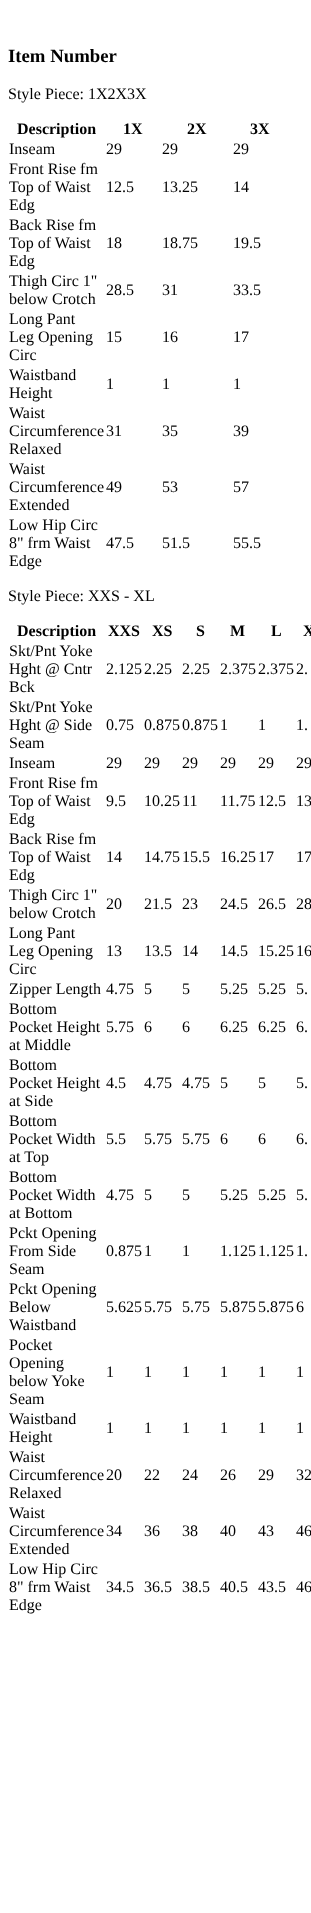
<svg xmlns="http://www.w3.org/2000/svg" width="311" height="1913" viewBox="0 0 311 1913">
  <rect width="100%" height="100%" fill="#fff"/>
  <text x="8" y="62" font-family="Liberation Serif" font-size="18.75" font-weight="bold" fill="#000">Item Number</text>
  <text x="8" y="99" font-family="Liberation Serif" font-size="16" fill="#000">Style Piece: 1X2X3X</text>
  <g font-family="Liberation Serif" font-size="16" font-weight="bold" fill="#000">
    <text x="17" y="134">Description</text>
    <text x="123" y="134">1X</text>
    <text x="187" y="134">2X</text>
    <text x="250" y="134">3X</text>
  </g>
  <g font-family="Liberation Serif" font-size="16" fill="#000">
    <text x="9" y="154">Inseam</text>
    <text x="106" y="154">29</text>
    <text x="162" y="154">29</text>
    <text x="233" y="154">29</text>
    <text x="9" y="174">Front Rise fm</text>
    <text x="9" y="192">Top of Waist</text>
    <text x="9" y="210">Edg</text>
    <text x="106" y="192">12.5</text>
    <text x="162" y="192">13.25</text>
    <text x="233" y="192">14</text>
    <text x="9" y="230">Back Rise fm</text>
    <text x="9" y="248">Top of Waist</text>
    <text x="9" y="266">Edg</text>
    <text x="106" y="248">18</text>
    <text x="162" y="248">18.75</text>
    <text x="233" y="248">19.5</text>
    <text x="9" y="286">Thigh Circ 1"</text>
    <text x="9" y="304">below Crotch</text>
    <text x="106" y="295">28.5</text>
    <text x="162" y="295">31</text>
    <text x="233" y="295">33.5</text>
    <text x="9" y="324">Long Pant</text>
    <text x="9" y="342">Leg Opening</text>
    <text x="9" y="360">Circ</text>
    <text x="106" y="342">15</text>
    <text x="162" y="342">16</text>
    <text x="233" y="342">17</text>
    <text x="9" y="380">Waistband</text>
    <text x="9" y="398">Height</text>
    <text x="106" y="389">1</text>
    <text x="162" y="389">1</text>
    <text x="233" y="389">1</text>
    <text x="9" y="418">Waist</text>
    <text x="9" y="436">Circumference</text>
    <text x="9" y="454">Relaxed</text>
    <text x="106" y="436">31</text>
    <text x="162" y="436">35</text>
    <text x="233" y="436">39</text>
    <text x="9" y="474">Waist</text>
    <text x="9" y="492">Circumference</text>
    <text x="9" y="510">Extended</text>
    <text x="106" y="492">49</text>
    <text x="162" y="492">53</text>
    <text x="233" y="492">57</text>
    <text x="9" y="530">Low Hip Circ</text>
    <text x="9" y="548">8" frm Waist</text>
    <text x="9" y="566">Edge</text>
    <text x="106" y="548">47.5</text>
    <text x="162" y="548">51.5</text>
    <text x="233" y="548">55.5</text>
    <text x="8" y="601">Style Piece: XXS - XL</text>
  </g>
  <g font-family="Liberation Serif" font-size="16" font-weight="bold" fill="#000">
    <text x="17" y="636">Description</text>
    <text x="108" y="636">XXS</text>
    <text x="152" y="636">XS</text>
    <text x="196" y="636">S</text>
    <text x="230" y="636">M</text>
    <text x="271" y="636">L</text>
    <text x="303" y="636">X</text>
  </g>
  <g font-family="Liberation Serif" font-size="16" fill="#000">
    <text x="9" y="656">Skt/Pnt Yoke</text>
    <text x="9" y="674">Hght @ Cntr</text>
    <text x="9" y="692">Bck</text>
    <text x="106" y="674">2.125</text>
    <text x="144" y="674">2.25</text>
    <text x="182" y="674">2.25</text>
    <text x="220" y="674">2.375</text>
    <text x="258" y="674">2.375</text>
    <text x="296" y="674">2.</text>
    <text x="9" y="712">Skt/Pnt Yoke</text>
    <text x="9" y="730">Hght @ Side</text>
    <text x="9" y="748">Seam</text>
    <text x="106" y="730">0.75</text>
    <text x="144" y="730">0.875</text>
    <text x="182" y="730">0.875</text>
    <text x="220" y="730">1</text>
    <text x="258" y="730">1</text>
    <text x="296" y="730">1.</text>
    <text x="9" y="768">Inseam</text>
    <text x="106" y="768">29</text>
    <text x="144" y="768">29</text>
    <text x="182" y="768">29</text>
    <text x="220" y="768">29</text>
    <text x="258" y="768">29</text>
    <text x="296" y="768">29</text>
    <text x="9" y="788">Front Rise fm</text>
    <text x="9" y="806">Top of Waist</text>
    <text x="9" y="824">Edg</text>
    <text x="106" y="806">9.5</text>
    <text x="144" y="806">10.25</text>
    <text x="182" y="806">11</text>
    <text x="220" y="806">11.75</text>
    <text x="258" y="806">12.5</text>
    <text x="296" y="806">13</text>
    <text x="9" y="844">Back Rise fm</text>
    <text x="9" y="862">Top of Waist</text>
    <text x="9" y="880">Edg</text>
    <text x="106" y="862">14</text>
    <text x="144" y="862">14.75</text>
    <text x="182" y="862">15.5</text>
    <text x="220" y="862">16.25</text>
    <text x="258" y="862">17</text>
    <text x="296" y="862">17</text>
    <text x="9" y="900">Thigh Circ 1"</text>
    <text x="9" y="918">below Crotch</text>
    <text x="106" y="909">20</text>
    <text x="144" y="909">21.5</text>
    <text x="182" y="909">23</text>
    <text x="220" y="909">24.5</text>
    <text x="258" y="909">26.5</text>
    <text x="296" y="909">28</text>
    <text x="9" y="938">Long Pant</text>
    <text x="9" y="956">Leg Opening</text>
    <text x="9" y="974">Circ</text>
    <text x="106" y="956">13</text>
    <text x="144" y="956">13.5</text>
    <text x="182" y="956">14</text>
    <text x="220" y="956">14.5</text>
    <text x="258" y="956">15.25</text>
    <text x="296" y="956">16</text>
    <text x="9" y="994">Zipper Length</text>
    <text x="106" y="994">4.75</text>
    <text x="144" y="994">5</text>
    <text x="182" y="994">5</text>
    <text x="220" y="994">5.25</text>
    <text x="258" y="994">5.25</text>
    <text x="296" y="994">5.</text>
    <text x="9" y="1014">Bottom</text>
    <text x="9" y="1032">Pocket Height</text>
    <text x="9" y="1050">at Middle</text>
    <text x="106" y="1032">5.75</text>
    <text x="144" y="1032">6</text>
    <text x="182" y="1032">6</text>
    <text x="220" y="1032">6.25</text>
    <text x="258" y="1032">6.25</text>
    <text x="296" y="1032">6.</text>
    <text x="9" y="1070">Bottom</text>
    <text x="9" y="1088">Pocket Height</text>
    <text x="9" y="1106">at Side</text>
    <text x="106" y="1088">4.5</text>
    <text x="144" y="1088">4.75</text>
    <text x="182" y="1088">4.75</text>
    <text x="220" y="1088">5</text>
    <text x="258" y="1088">5</text>
    <text x="296" y="1088">5.</text>
    <text x="9" y="1126">Bottom</text>
    <text x="9" y="1144">Pocket Width</text>
    <text x="9" y="1162">at Top</text>
    <text x="106" y="1144">5.5</text>
    <text x="144" y="1144">5.75</text>
    <text x="182" y="1144">5.75</text>
    <text x="220" y="1144">6</text>
    <text x="258" y="1144">6</text>
    <text x="296" y="1144">6.</text>
    <text x="9" y="1182">Bottom</text>
    <text x="9" y="1200">Pocket Width</text>
    <text x="9" y="1218">at Bottom</text>
    <text x="106" y="1200">4.75</text>
    <text x="144" y="1200">5</text>
    <text x="182" y="1200">5</text>
    <text x="220" y="1200">5.25</text>
    <text x="258" y="1200">5.25</text>
    <text x="296" y="1200">5.</text>
    <text x="9" y="1238">Pckt Opening</text>
    <text x="9" y="1256">From Side</text>
    <text x="9" y="1274">Seam</text>
    <text x="106" y="1256">0.875</text>
    <text x="144" y="1256">1</text>
    <text x="182" y="1256">1</text>
    <text x="220" y="1256">1.125</text>
    <text x="258" y="1256">1.125</text>
    <text x="296" y="1256">1.</text>
    <text x="9" y="1294">Pckt Opening</text>
    <text x="9" y="1312">Below</text>
    <text x="9" y="1330">Waistband</text>
    <text x="106" y="1312">5.625</text>
    <text x="144" y="1312">5.75</text>
    <text x="182" y="1312">5.75</text>
    <text x="220" y="1312">5.875</text>
    <text x="258" y="1312">5.875</text>
    <text x="296" y="1312">6</text>
    <text x="9" y="1350">Pocket</text>
    <text x="9" y="1368">Opening</text>
    <text x="9" y="1386">below Yoke</text>
    <text x="9" y="1404">Seam</text>
    <text x="106" y="1377">1</text>
    <text x="144" y="1377">1</text>
    <text x="182" y="1377">1</text>
    <text x="220" y="1377">1</text>
    <text x="258" y="1377">1</text>
    <text x="296" y="1377">1</text>
    <text x="9" y="1424">Waistband</text>
    <text x="9" y="1442">Height</text>
    <text x="106" y="1433">1</text>
    <text x="144" y="1433">1</text>
    <text x="182" y="1433">1</text>
    <text x="220" y="1433">1</text>
    <text x="258" y="1433">1</text>
    <text x="296" y="1433">1</text>
    <text x="9" y="1462">Waist</text>
    <text x="9" y="1480">Circumference</text>
    <text x="9" y="1498">Relaxed</text>
    <text x="106" y="1480">20</text>
    <text x="144" y="1480">22</text>
    <text x="182" y="1480">24</text>
    <text x="220" y="1480">26</text>
    <text x="258" y="1480">29</text>
    <text x="296" y="1480">32</text>
    <text x="9" y="1518">Waist</text>
    <text x="9" y="1536">Circumference</text>
    <text x="9" y="1554">Extended</text>
    <text x="106" y="1536">34</text>
    <text x="144" y="1536">36</text>
    <text x="182" y="1536">38</text>
    <text x="220" y="1536">40</text>
    <text x="258" y="1536">43</text>
    <text x="296" y="1536">46</text>
    <text x="9" y="1574">Low Hip Circ</text>
    <text x="9" y="1592">8" frm Waist</text>
    <text x="9" y="1610">Edge</text>
    <text x="106" y="1592">34.5</text>
    <text x="144" y="1592">36.5</text>
    <text x="182" y="1592">38.5</text>
    <text x="220" y="1592">40.5</text>
    <text x="258" y="1592">43.5</text>
    <text x="296" y="1592">46</text>
  </g>
</svg>
